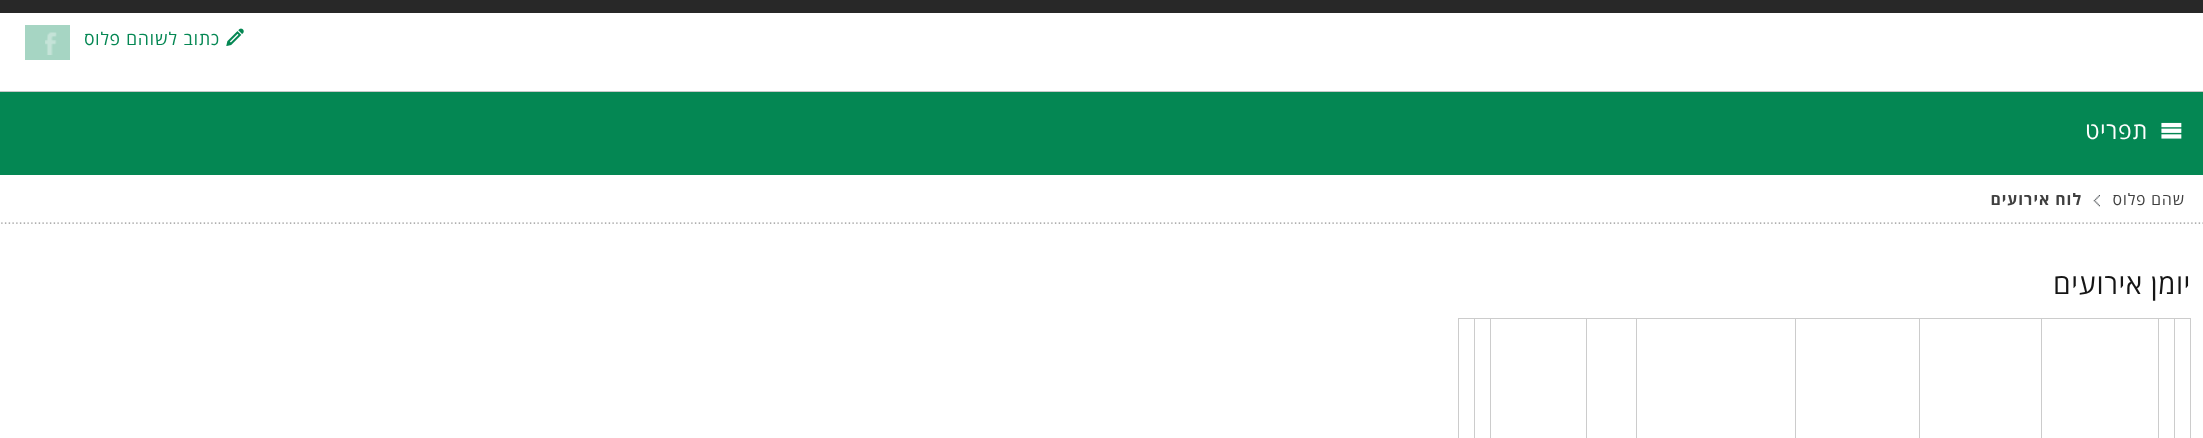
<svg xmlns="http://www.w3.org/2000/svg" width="2203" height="438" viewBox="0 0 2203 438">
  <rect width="100%" height="100%" fill="#fff"/>
  <path d="M0 0h2203v13H0z" fill="#282828"/>
  <image x="226" y="28" width="18" height="18" href="img/1.png"/>
  <path d="M25 25h45v35H25z" fill="#a6d5c3"/>
  <image x="45" y="32" width="12" height="23" href="img/2.png"/>
  <path d="M0 92h2203v83H0z" fill="#048753"/>
  <path d="M0 91h2203v1H0z" fill="#c8c8c8"/>
  <image x="2161" y="122" width="21" height="17" href="img/3.png"/>
  <image x="1" y="222" width="2202" height="2" href="img/4.png"/>
  <image x="2093" y="195" width="7" height="12" href="img/5.png"/>
  <path d="M1458 318h17v1H1458z" fill="#ccc"/>
  <path d="M1474 318h1v120H1474z" fill="#ccc"/>
  <path d="M1474 318h17v1H1474z" fill="#ccc"/>
  <path d="M1490 318h1v120H1490z" fill="#ccc"/>
  <path d="M1490 318h98v1H1490z" fill="#ccc"/>
  <path d="M1586 318h1v120H1586z" fill="#ccc"/>
  <path d="M1586 318h52v1H1586z" fill="#ccc"/>
  <path d="M1636 318h1v120H1636z" fill="#ccc"/>
  <path d="M1636 318h160v1H1636z" fill="#ccc"/>
  <path d="M1795 318h1v120H1795z" fill="#ccc"/>
  <path d="M1795 318h125v1H1795z" fill="#ccc"/>
  <path d="M1919 318h1v120H1919z" fill="#ccc"/>
  <path d="M1919 318h124v1H1919z" fill="#ccc"/>
  <path d="M2041 318h1v120H2041z" fill="#ccc"/>
  <path d="M2041 318h118v1H2041z" fill="#ccc"/>
  <path d="M2158 318h1v120H2158z" fill="#ccc"/>
  <path d="M2158 318h17v1H2158z" fill="#ccc"/>
  <path d="M2174 318h1v120H2174z" fill="#ccc"/>
  <path d="M2174 318h17v1H2174z" fill="#ccc"/>
  <path d="M2190 318h1v120H2190z" fill="#ccc"/>
  <path d="M1458 318h1v120H1458z" fill="#ccc"/>
  <text x="220" y="45" font-family="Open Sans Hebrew" font-size="17.5" letter-spacing="1" direction="rtl" fill="#048753">כתוב לשוהם פלוס</text>
  <text x="2148" y="139" font-family="Open Sans Hebrew" font-size="23" letter-spacing="1" direction="rtl" fill="#fff">תפריט</text>
  <text x="2185" y="205" font-family="Open Sans Hebrew" font-size="15.75" letter-spacing="1" direction="rtl" fill="#404040">שהם פלוס</text>
  <text x="2082" y="205" font-family="Open Sans Hebrew" font-size="15.75" font-weight="bold" letter-spacing="1" direction="rtl" fill="#404040">לוח אירועים</text>
  <text x="2191" y="294" font-family="Open Sans Hebrew" font-size="28" letter-spacing="1" direction="rtl" fill="#151515">יומן אירועים</text>
</svg>
